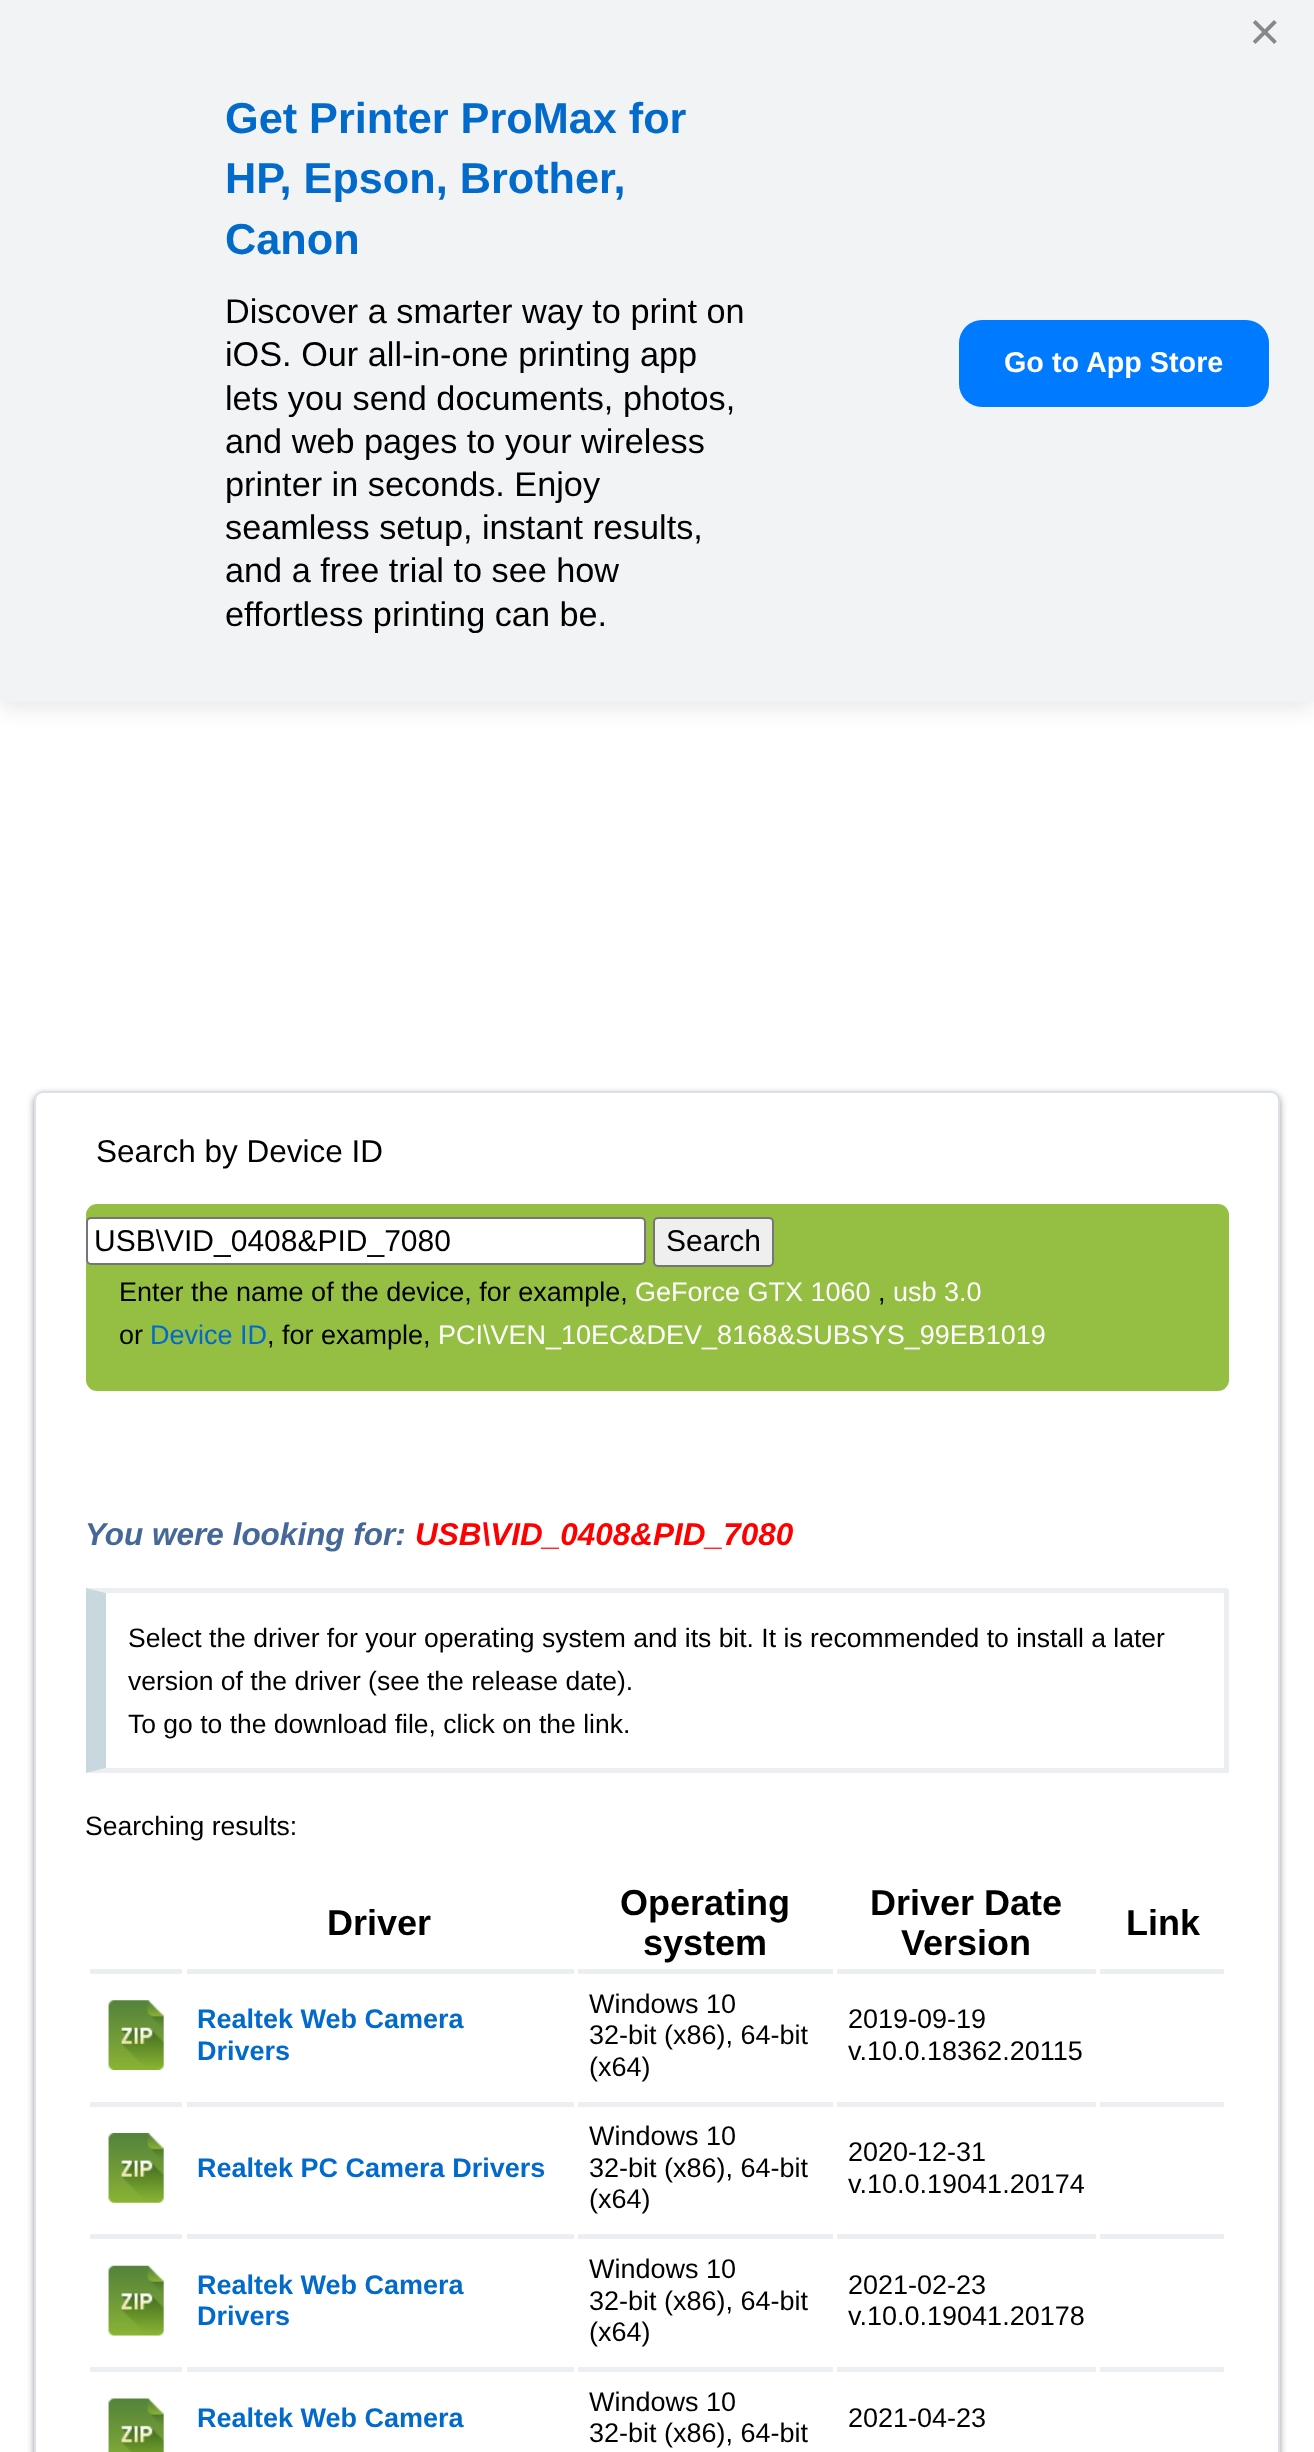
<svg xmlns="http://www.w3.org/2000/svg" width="1314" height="2452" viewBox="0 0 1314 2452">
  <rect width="100%" height="100%" fill="#fff"/>
  <path d="M0 5h1314v702H0z" fill="#0000001a" filter="blur(11px)"/>
  <path d="M0 0h1314v702H0z" fill="#f2f3f5"/>
  <rect x="959" y="320" width="310" height="87" rx="23" fill="#007aff"/>
  <rect x="34" y="1094" width="1246" height="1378" rx="9" fill="#00000066" filter="blur(3.5px)"/>
  <rect x="35" y="1092" width="1244" height="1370" rx="8" fill="#fff" stroke="#dae1e8" stroke-width="2"/>
  <rect x="86" y="1204" width="1143" height="187" rx="11" fill="#94bf42"/>
  <rect x="87" y="1218" width="558" height="46" rx="4" fill="#fff" stroke="#767676" stroke-width="2"/>
  <rect x="654" y="1218" width="119" height="48" rx="4" fill="#efefef" stroke="#767676" stroke-width="2"/>
  <path d="M86 1588H1228L1224 1593H106Z" fill="#ebeff2"/>
  <path d="M1224 1589h5v184H1224z" fill="#ebeff2"/>
  <path d="M1228 1773H86L106 1768H1224Z" fill="#ebeff2"/>
  <path d="M86 1773V1588L106 1593V1768Z" fill="#c9d8df"/>
  <path d="M90 1969h92v5H90z" fill="#ebeff2"/>
  <image x="108" y="2000" width="56" height="70" href="img/1.png"/>
  <path d="M1100 1969h124v5H1100z" fill="#ebeff2"/>
  <path d="M187 1969h387v5H187z" fill="#ebeff2"/>
  <path d="M578 1969h255v5H578z" fill="#ebeff2"/>
  <path d="M837 1969h259v5H837z" fill="#ebeff2"/>
  <path d="M90 2102h92v5H90z" fill="#ebeff2"/>
  <image x="108" y="2133" width="56" height="70" href="img/2.png"/>
  <path d="M1100 2102h124v5H1100z" fill="#ebeff2"/>
  <path d="M187 2102h387v5H187z" fill="#ebeff2"/>
  <path d="M578 2102h255v5H578z" fill="#ebeff2"/>
  <path d="M837 2102h259v5H837z" fill="#ebeff2"/>
  <path d="M90 2234h92v5H90z" fill="#ebeff2"/>
  <image x="108" y="2265" width="56" height="71" href="img/3.png"/>
  <path d="M1100 2234h124v5H1100z" fill="#ebeff2"/>
  <path d="M187 2234h387v5H187z" fill="#ebeff2"/>
  <path d="M578 2234h255v5H578z" fill="#ebeff2"/>
  <path d="M837 2234h259v5H837z" fill="#ebeff2"/>
  <path d="M90 2367h92v5H90z" fill="#ebeff2"/>
  <image x="108" y="2398" width="56" height="54" href="img/4.png"/>
  <path d="M1100 2367h124v5H1100z" fill="#ebeff2"/>
  <path d="M187 2367h387v5H187z" fill="#ebeff2"/>
  <path d="M578 2367h255v5H578z" fill="#ebeff2"/>
  <path d="M837 2367h259v5H837z" fill="#ebeff2"/>
  <text x="1249" y="50" font-family="Liberation Sans" font-size="54" fill="#888">×</text>
  <g font-family="Liberation Sans" font-size="43.25" font-weight="bold" fill="#026acb">
    <text x="225" y="133">Get Printer ProMax for</text>
    <text x="225" y="193">HP, Epson, Brother,</text>
    <text x="225" y="254">Canon</text>
  </g>
  <g font-family="Liberation Sans" font-size="34.25" fill="#000">
    <text x="225" y="323">Discover a smarter way to print on</text>
    <text x="225" y="366">iOS. Our all-in-one printing app</text>
    <text x="225" y="410">lets you send documents, photos,</text>
    <text x="225" y="453">and web pages to your wireless</text>
    <text x="225" y="496">printer in seconds. Enjoy</text>
    <text x="225" y="539">seamless setup, instant results,</text>
    <text x="225" y="582">and a free trial to see how</text>
    <text x="225" y="626">effortless printing can be.</text>
  </g>
  <text x="1004" y="372" font-family="Liberation Sans" font-size="28.75" font-weight="bold" fill="#fff">Go to App Store</text>
  <text x="96" y="1162" font-family="Liberation Sans" font-size="31.5" fill="#000">Search by Device ID</text>
  <g font-family="Liberation Sans" font-size="30" fill="#000">
    <text x="94" y="1251">USB\VID_0408&amp;PID_7080</text>
    <text x="666" y="1251">Search</text>
  </g>
  <text x="119" y="1301" font-family="Liberation Sans" font-size="27" fill="#000">Enter the name of the device, for example,</text>
  <text x="635" y="1301" font-family="Liberation Sans" font-size="27" fill="#fff">GeForce GTX 1060</text>
  <text x="878" y="1301" font-family="Liberation Sans" font-size="27" fill="#000">,</text>
  <text x="893" y="1301" font-family="Liberation Sans" font-size="27" fill="#fff">usb 3.0</text>
  <text x="119" y="1344" font-family="Liberation Sans" font-size="27" fill="#000">or</text>
  <text x="150" y="1344" font-family="Liberation Sans" font-size="27" fill="#026acb">Device ID</text>
  <text x="267" y="1344" font-family="Liberation Sans" font-size="27" fill="#000">, for example,</text>
  <text x="438" y="1344" font-family="Liberation Sans" font-size="27" fill="#fff">PCI\VEN_10EC&amp;DEV_8168&amp;SUBSYS_99EB1019</text>
  <text x="85" y="1545" font-family="Liberation Sans" font-size="31.5" font-weight="bold" font-style="italic" fill="#456899">You were looking for:</text>
  <text x="415" y="1545" font-family="Liberation Sans" font-size="31.5" font-weight="bold" font-style="italic" fill="#f00">USB\VID_0408&amp;PID_7080</text>
  <g font-family="Liberation Sans" font-size="26.5" fill="#000">
    <text x="128" y="1647">Select the driver for your operating system and its bit. It is recommended to install a later</text>
    <text x="128" y="1690">version of the driver (see the release date).</text>
    <text x="128" y="1733">To go to the download file, click on the link.</text>
    <text x="85" y="1835">Searching results:</text>
  </g>
  <g font-family="Liberation Sans" font-size="36" font-weight="bold" fill="#000">
    <text x="327" y="1935">Driver</text>
    <text x="620" y="1915">Operating</text>
    <text x="643" y="1955">system</text>
    <text x="870" y="1915">Driver Date</text>
    <text x="901" y="1955">Version</text>
    <text x="1126" y="1935">Link</text>
  </g>
  <g font-family="Liberation Sans" font-size="27" font-weight="bold" fill="#026acb">
    <text x="197" y="2028">Realtek Web Camera</text>
    <text x="197" y="2060">Drivers</text>
  </g>
  <g font-family="Liberation Sans" font-size="27" fill="#000">
    <text x="589" y="2013">Windows 10</text>
    <text x="589" y="2044">32-bit (x86), 64-bit</text>
    <text x="589" y="2076">(x64)</text>
    <text x="848" y="2028">2019-09-19</text>
    <text x="848" y="2060">v.10.0.18362.20115</text>
  </g>
  <text x="197" y="2177" font-family="Liberation Sans" font-size="27" font-weight="bold" fill="#026acb">Realtek PC Camera Drivers</text>
  <g font-family="Liberation Sans" font-size="27" fill="#000">
    <text x="589" y="2145">Windows 10</text>
    <text x="589" y="2177">32-bit (x86), 64-bit</text>
    <text x="589" y="2208">(x64)</text>
    <text x="848" y="2161">2020-12-31</text>
    <text x="848" y="2193">v.10.0.19041.20174</text>
  </g>
  <g font-family="Liberation Sans" font-size="27" font-weight="bold" fill="#026acb">
    <text x="197" y="2294">Realtek Web Camera</text>
    <text x="197" y="2325">Drivers</text>
  </g>
  <g font-family="Liberation Sans" font-size="27" fill="#000">
    <text x="589" y="2278">Windows 10</text>
    <text x="589" y="2310">32-bit (x86), 64-bit</text>
    <text x="589" y="2341">(x64)</text>
    <text x="848" y="2294">2021-02-23</text>
    <text x="848" y="2325">v.10.0.19041.20178</text>
  </g>
  <text x="197" y="2427" font-family="Liberation Sans" font-size="27" font-weight="bold" fill="#026acb">Realtek Web Camera</text>
  <g font-family="Liberation Sans" font-size="27" fill="#000">
    <text x="589" y="2411">Windows 10</text>
    <text x="589" y="2442">32-bit (x86), 64-bit</text>
    <text x="848" y="2427">2021-04-23</text>
  </g>
</svg>
